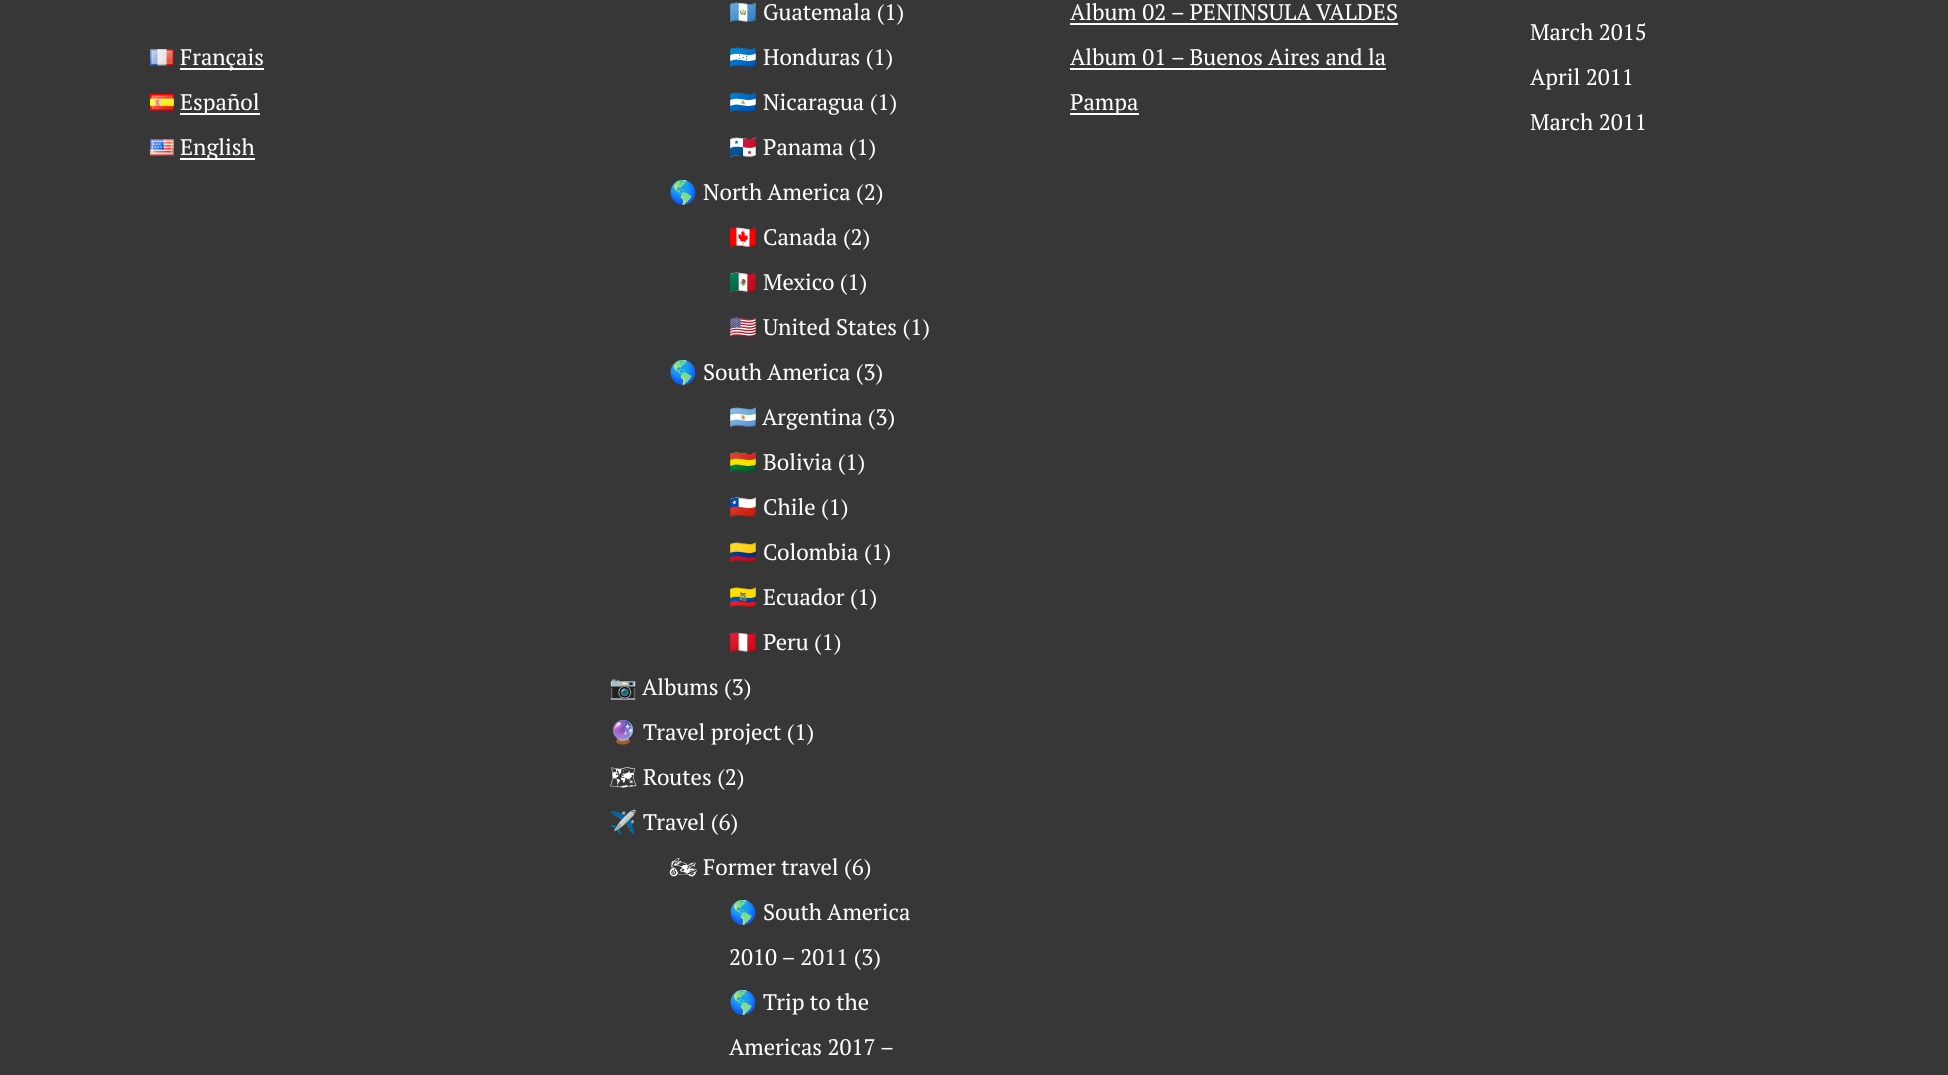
<svg xmlns="http://www.w3.org/2000/svg" width="1948" height="1075" viewBox="0 0 1948 1075">
  <rect width="100%" height="100%" fill="#373737"/>
  <image x="150" y="49" width="24" height="17" href="img/1.png"/>
  <path d="M180 68h84v2H180z" fill="#fff"/>
  <image x="150" y="94" width="24" height="17" href="img/2.png"/>
  <path d="M180 113h80v2H180z" fill="#fff"/>
  <image x="150" y="139" width="24" height="17" href="img/3.png"/>
  <path d="M180 158h75v2H180z" fill="#fff"/>
  <path d="M1070 23h328v2H1070z" fill="#fff"/>
  <path d="M1070 68h316v2H1070z" fill="#fff"/>
  <path d="M1070 113h69v2H1070z" fill="#fff"/>
  <g font-family="PT Serif" font-size="22.5" fill="#fff">
    <text x="180" y="65">Français</text>
    <text x="180" y="110">Español</text>
    <text x="180" y="155">English</text>
  </g>
  <text x="729" y="20" font-family="Noto Color Emoji" font-size="22.5" fill="#fff">🇬🇹</text>
  <text x="763" y="20" font-family="PT Serif" font-size="22.5" fill="#fff">Guatemala (1)</text>
  <text x="729" y="65" font-family="Noto Color Emoji" font-size="22.5" fill="#fff">🇭🇳</text>
  <text x="763" y="65" font-family="PT Serif" font-size="22.5" fill="#fff">Honduras (1)</text>
  <text x="729" y="110" font-family="Noto Color Emoji" font-size="22.5" fill="#fff">🇳🇮</text>
  <text x="763" y="110" font-family="PT Serif" font-size="22.5" fill="#fff">Nicaragua (1)</text>
  <text x="729" y="155" font-family="Noto Color Emoji" font-size="22.5" fill="#fff">🇵🇦</text>
  <text x="763" y="155" font-family="PT Serif" font-size="22.5" fill="#fff">Panama (1)</text>
  <text x="669" y="200" font-family="Noto Color Emoji" font-size="22.5" fill="#fff">🌎</text>
  <text x="703" y="200" font-family="PT Serif" font-size="22.5" fill="#fff">North America (2)</text>
  <text x="729" y="245" font-family="Noto Color Emoji" font-size="22.5" fill="#fff">🇨🇦</text>
  <text x="763" y="245" font-family="PT Serif" font-size="22.5" fill="#fff">Canada (2)</text>
  <text x="729" y="290" font-family="Noto Color Emoji" font-size="22.5" fill="#fff">🇲🇽</text>
  <text x="763" y="290" font-family="PT Serif" font-size="22.5" fill="#fff">Mexico (1)</text>
  <text x="729" y="335" font-family="Noto Color Emoji" font-size="22.5" fill="#fff">🇺🇸</text>
  <text x="763" y="335" font-family="PT Serif" font-size="22.5" fill="#fff">United States (1)</text>
  <text x="669" y="380" font-family="Noto Color Emoji" font-size="22.5" fill="#fff">🌎</text>
  <text x="703" y="380" font-family="PT Serif" font-size="22.5" fill="#fff">South America (3)</text>
  <text x="729" y="425" font-family="Noto Color Emoji" font-size="22.5" fill="#fff">🇦🇷</text>
  <text x="762" y="425" font-family="PT Serif" font-size="22.5" fill="#fff">Argentina (3)</text>
  <text x="729" y="470" font-family="Noto Color Emoji" font-size="22.5" fill="#fff">🇧🇴</text>
  <text x="763" y="470" font-family="PT Serif" font-size="22.5" fill="#fff">Bolivia (1)</text>
  <text x="729" y="515" font-family="Noto Color Emoji" font-size="22.5" fill="#fff">🇨🇱</text>
  <text x="763" y="515" font-family="PT Serif" font-size="22.5" fill="#fff">Chile (1)</text>
  <text x="729" y="560" font-family="Noto Color Emoji" font-size="22.5" fill="#fff">🇨🇴</text>
  <text x="763" y="560" font-family="PT Serif" font-size="22.5" fill="#fff">Colombia (1)</text>
  <text x="729" y="605" font-family="Noto Color Emoji" font-size="22.5" fill="#fff">🇪🇨</text>
  <text x="763" y="605" font-family="PT Serif" font-size="22.5" fill="#fff">Ecuador (1)</text>
  <text x="729" y="650" font-family="Noto Color Emoji" font-size="22.5" fill="#fff">🇵🇪</text>
  <text x="763" y="650" font-family="PT Serif" font-size="22.5" fill="#fff">Peru (1)</text>
  <text x="609" y="695" font-family="Noto Color Emoji" font-size="22.5" fill="#fff">📷</text>
  <text x="642" y="695" font-family="PT Serif" font-size="22.5" fill="#fff">Albums (3)</text>
  <text x="609" y="740" font-family="Noto Color Emoji" font-size="22.5" fill="#fff">🔮</text>
  <text x="643" y="740" font-family="PT Serif" font-size="22.5" fill="#fff">Travel project (1)</text>
  <text x="609" y="785" font-family="Noto Emoji" font-size="22.5" font-weight="300" fill="#fff">🗺</text>
  <text x="643" y="785" font-family="PT Serif" font-size="22.5" fill="#fff">Routes (2)</text>
  <text x="609" y="830" font-family="Noto Color Emoji" font-size="22.5" fill="#fff">✈️</text>
  <text x="643" y="830" font-family="PT Serif" font-size="22.5" fill="#fff">Travel (6)</text>
  <text x="669" y="875" font-family="Noto Emoji" font-size="22.5" font-weight="300" fill="#fff">🏍</text>
  <text x="703" y="875" font-family="PT Serif" font-size="22.5" fill="#fff">Former travel (6)</text>
  <text x="729" y="920" font-family="Noto Color Emoji" font-size="22.5" fill="#fff">🌎</text>
  <g font-family="PT Serif" font-size="22.5" fill="#fff">
    <text x="763" y="920">South America</text>
    <text x="729" y="965">2010 – 2011 (3)</text>
  </g>
  <text x="729" y="1010" font-family="Noto Color Emoji" font-size="22.5" fill="#fff">🌎</text>
  <g font-family="PT Serif" font-size="22.5" fill="#fff">
    <text x="763" y="1010">Trip to the</text>
    <text x="729" y="1055">Americas 2017 –</text>
    <text x="1070" y="20">Album 02 – PENINSULA VALDES</text>
    <text x="1070" y="65">Album 01 – Buenos Aires and la</text>
    <text x="1070" y="110">Pampa</text>
    <text x="1530" y="40">March 2015</text>
    <text x="1530" y="85">April 2011</text>
    <text x="1530" y="130">March 2011</text>
  </g>
</svg>
